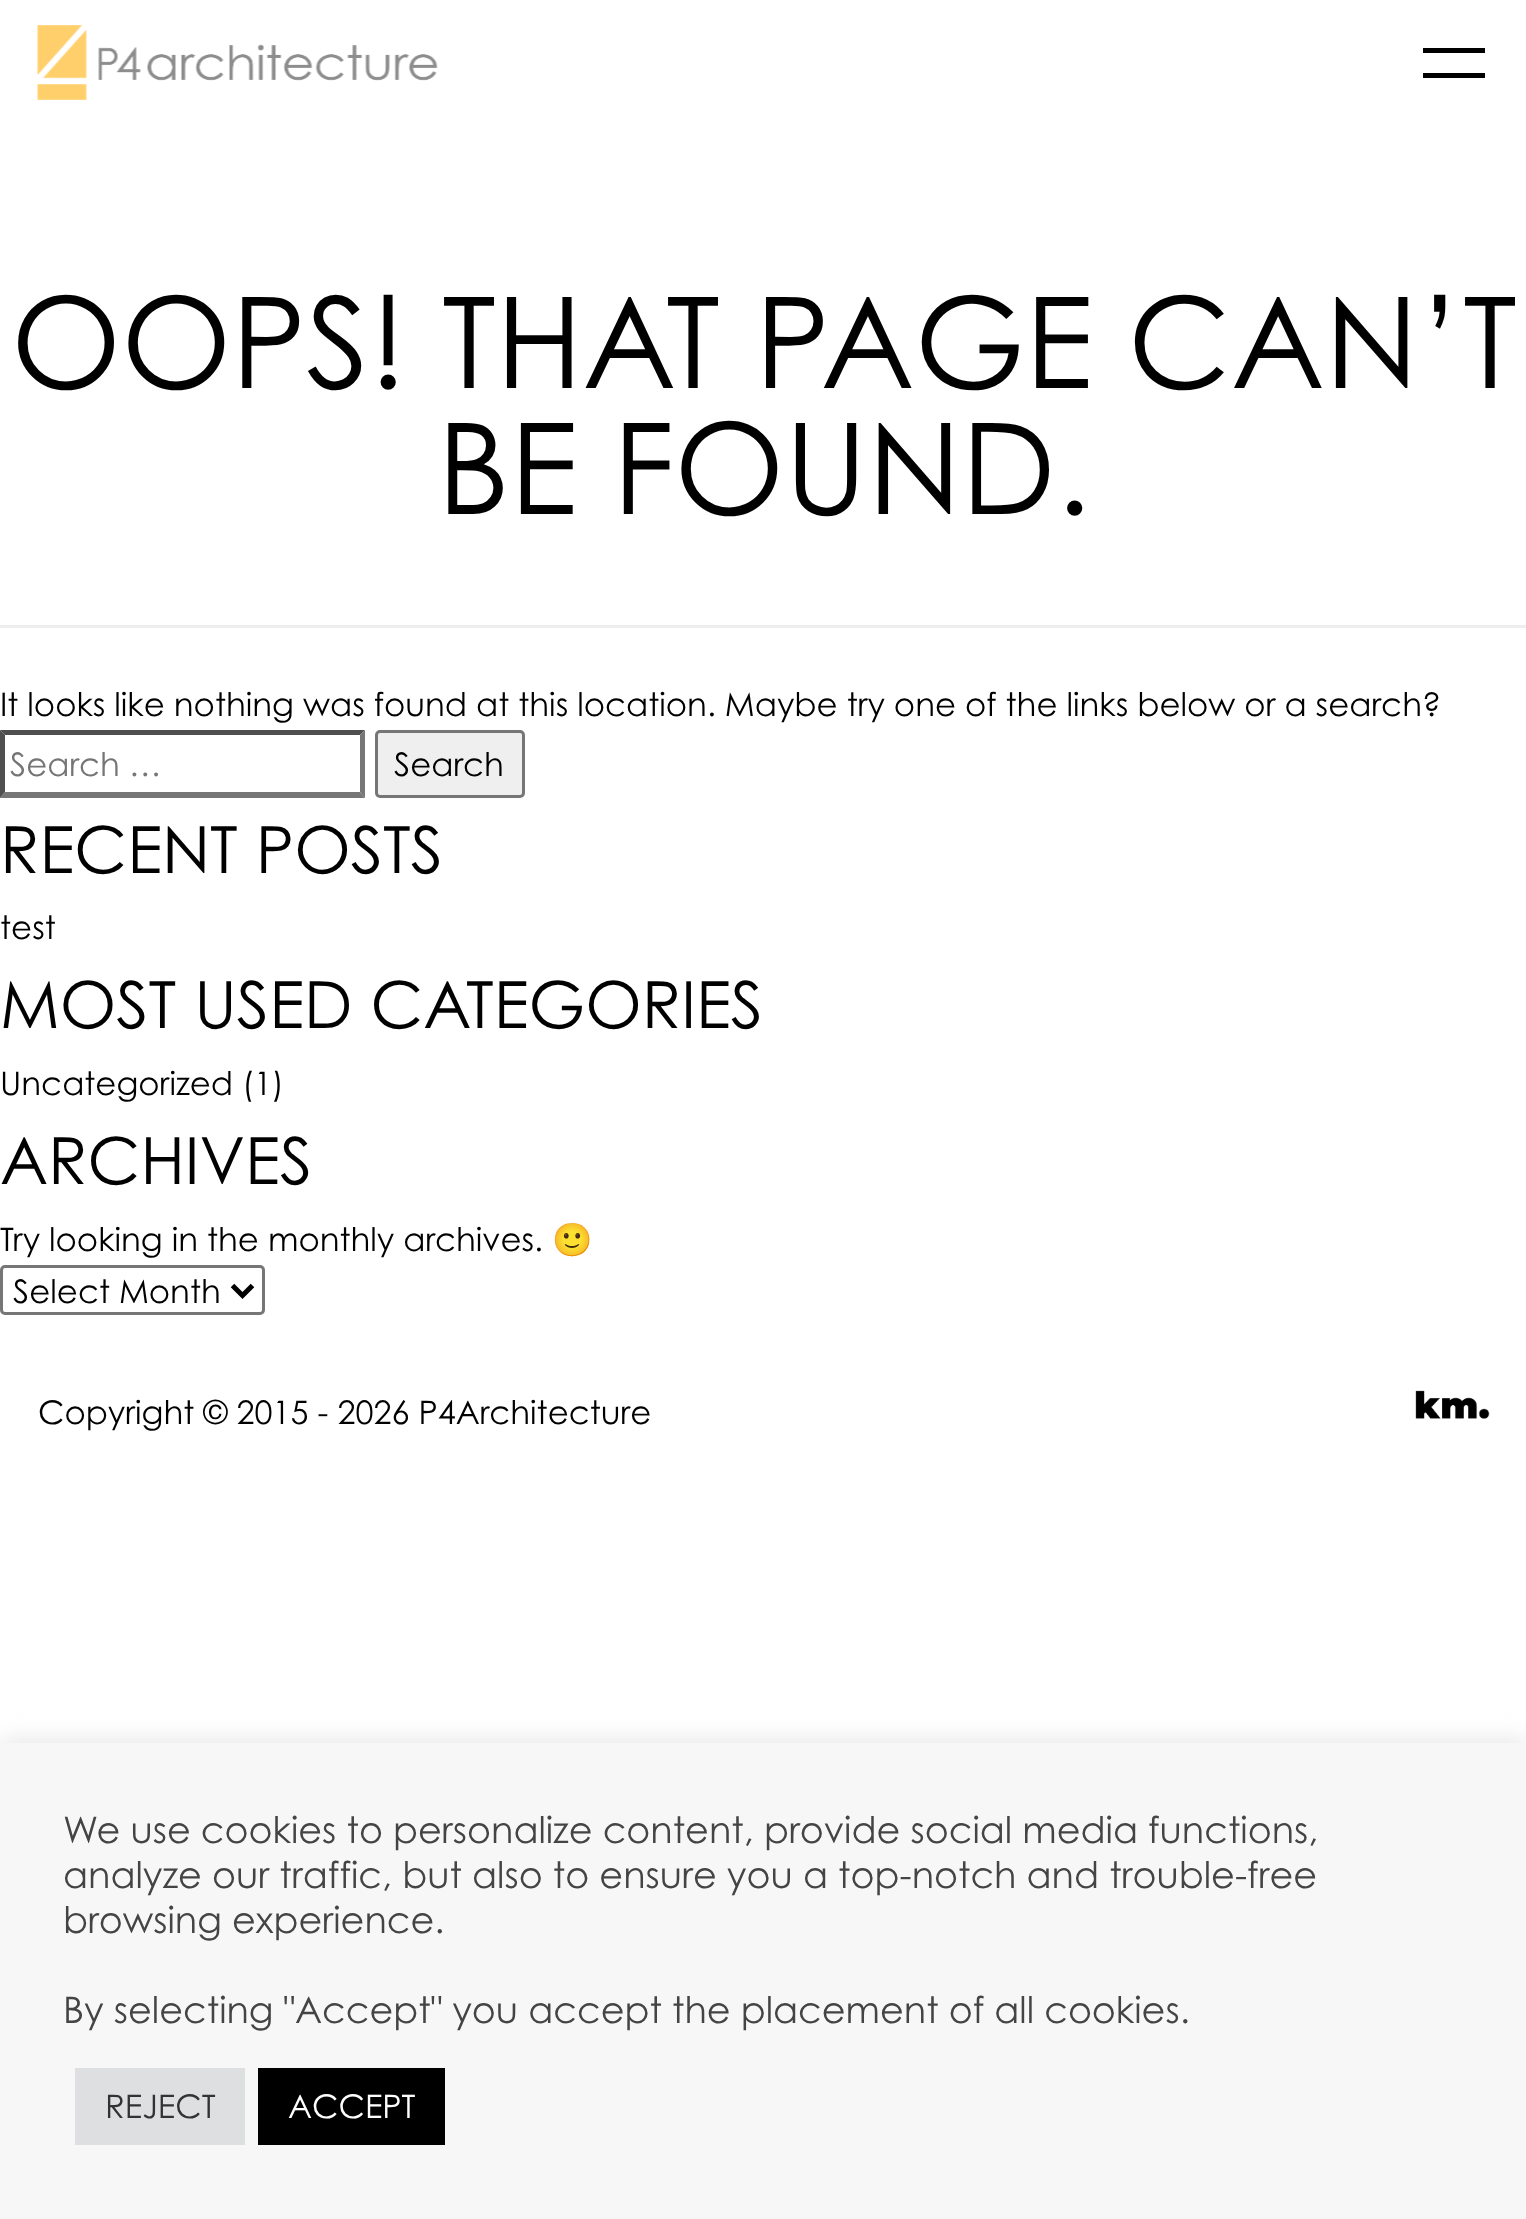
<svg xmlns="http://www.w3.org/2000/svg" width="1526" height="2219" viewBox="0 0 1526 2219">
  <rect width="100%" height="100%" fill="#fff"/>
  <image x="37" y="25" width="401" height="75" href="img/1.png"/>
  <path d="M1423 48h62v5H1423z" fill="#000"/>
  <path d="M1423 73h62v5H1423z" fill="#000"/>
  <path d="M0 625h1526v3H0z" fill="#eee"/>
  <path d="M0 730H365L360 735H5Z" fill="#4f4f4f"/>
  <path d="M365 730V798L360 792V735Z" fill="#767676"/>
  <path d="M365 798H0L5 792H360Z" fill="#767676"/>
  <path d="M0 798V730L5 735V792Z" fill="#4f4f4f"/>
  <rect x="376.5" y="731.5" width="147" height="65" rx="3.5" fill="#efefef" stroke="#767676" stroke-width="3"/>
  <rect x="1.5" y="1266.5" width="262" height="47" rx="3.5" fill="none" stroke="#767676" stroke-width="3"/>
  <path d="M232.5 1285.5L242.5 1295.5L252.5 1285.5" fill="none" stroke="#000" stroke-width="5"/>
  <image x="1415" y="1390" width="75" height="29" href="img/2.png"/>
  <path d="M0 1740h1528v478H0z" fill="#acabab4d" filter="blur(12.5px)"/>
  <path d="M0 1743h1526v476H0z" fill="#f7f7f7"/>
  <path d="M75 2068h170v77H75z" fill="#dedfe0"/>
  <path d="M258 2068h187v77H258z" fill="#000"/>
  <g font-family="Century Gothic" font-size="126.75" fill="#000">
    <text x="11" y="388">OOPS! THAT PAGE CAN’T</text>
    <text x="437" y="514">BE FOUND.</text>
  </g>
  <text x="0" y="716" font-family="Century Gothic" font-size="32.5" fill="#000">It looks like nothing was found at this location. Maybe try one of the links below or a search?</text>
  <text x="10" y="776" font-family="Century Gothic" font-size="32.5" fill="#757575">Search …</text>
  <text x="394" y="776" font-family="Century Gothic" font-size="32.5" fill="#000">Search</text>
  <text x="0" y="873" font-family="Century Gothic" font-size="65" fill="#000">RECENT POSTS</text>
  <text x="0" y="939" font-family="Century Gothic" font-size="32.5" fill="#000">test</text>
  <text x="0" y="1028" font-family="Century Gothic" font-size="65" fill="#000">MOST USED CATEGORIES</text>
  <text x="0" y="1095" font-family="Century Gothic" font-size="32.5" fill="#000">Uncategorized (1)</text>
  <text x="0" y="1184" font-family="Century Gothic" font-size="65" fill="#000">ARCHIVES</text>
  <text x="0" y="1251" font-family="Century Gothic" font-size="32.5" fill="#000">Try looking in the monthly archives.</text>
  <text x="552" y="1251" font-family="Noto Color Emoji" font-size="32.5" fill="#000">🙂</text>
  <g font-family="Century Gothic" font-size="32.5" fill="#000">
    <text x="13" y="1303">Select Month</text>
    <text x="38" y="1424">Copyright © 2015 - 2026 P4Architecture</text>
  </g>
  <g font-family="Century Gothic" font-size="36.65" fill="#444">
    <text x="63" y="1843">We use cookies to personalize content, provide social media functions,</text>
    <text x="63" y="1888">analyze our traffic, but also to ensure you a top-notch and trouble-free</text>
    <text x="63" y="1933">browsing experience.</text>
    <text x="63" y="2023">By selecting "Accept" you accept the placement of all cookies.</text>
  </g>
  <text x="105" y="2118" font-family="Century Gothic" font-size="32.5" fill="#333">REJECT</text>
  <text x="288" y="2118" font-family="Century Gothic" font-size="32.5" fill="#fff">ACCEPT</text>
</svg>
